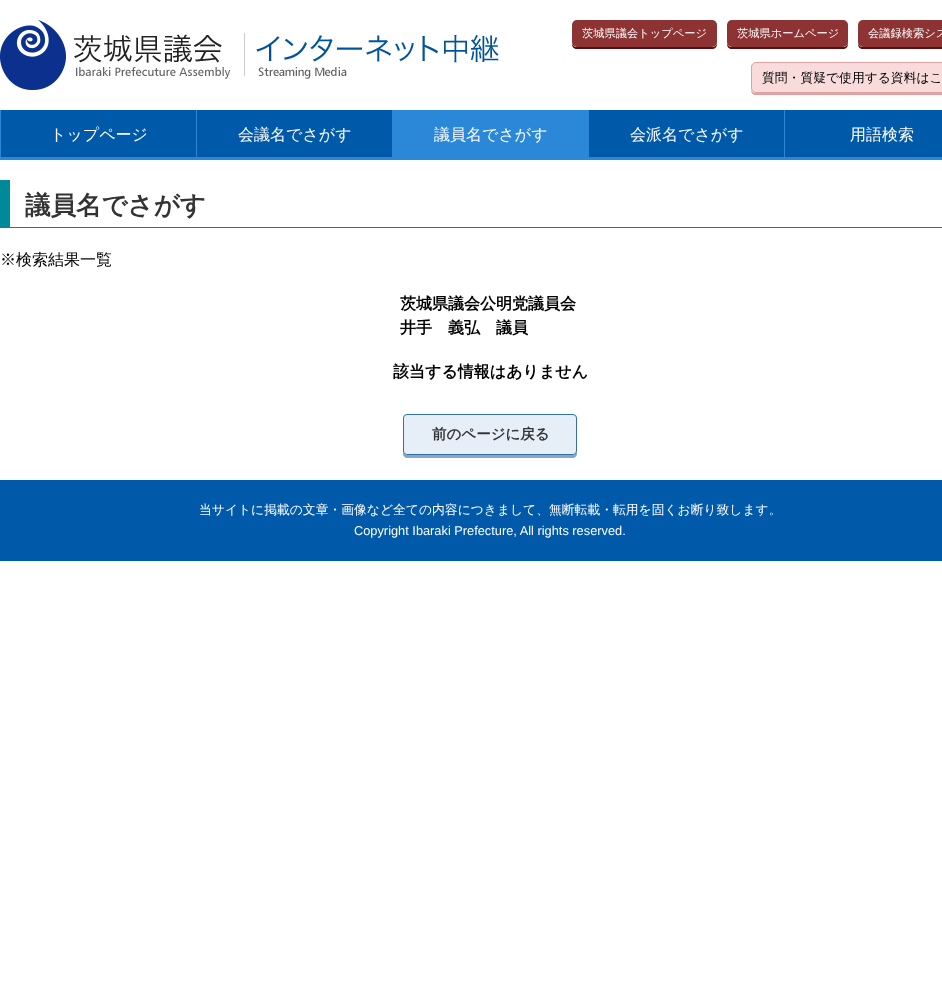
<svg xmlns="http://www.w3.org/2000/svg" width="942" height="982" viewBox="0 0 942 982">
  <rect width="100%" height="100%" fill="#fff"/>
  <image x="0" y="20" width="499" height="70" href="img/1.png"/>
  <path d="M572 42V44C572 47 574 49 577 49H712C715 49 717 47 717 44V42C717 45 715 47 712 47H577C574 47 572 45 572 42Z" fill="#551110"/>
  <rect x="572" y="20" width="145" height="27" rx="5" fill="#8d3333"/>
  <path d="M727 42V44C727 47 729 49 732 49H843C846 49 848 47 848 44V42C848 45 846 47 843 47H732C729 47 727 45 727 42Z" fill="#551110"/>
  <rect x="727" y="20" width="121" height="27" rx="5" fill="#8d3333"/>
  <path d="M858 42V44C858 47 860 49 863 49H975C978 49 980 47 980 44V42C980 45 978 47 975 47H863C860 47 858 45 858 42Z" fill="#551110"/>
  <rect x="858" y="20" width="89" height="27" rx="5" fill="#8d3333"/>
  <path d="M751 88C751 91 751 94 755 95H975C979 95 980 91 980 88C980 91 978 93 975 93H756C753 93 751 91 751 88Z" fill="#e2a1a1"/>
  <rect x="751.5" y="62.5" width="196" height="30" rx="4.5" fill="#f9dbdb" stroke="#e2a1a1"/>
  <path d="M1 110h941v47H1z" fill="#0059a9"/>
  <path d="M0 157h942v3H0z" fill="#2b88d8"/>
  <path d="M0 110h1v47H0z" fill="#2b88d8"/>
  <path d="M196 110h1v47H196z" fill="#2b88d8"/>
  <path d="M392 110h197v47H392z" fill="#2b88d8"/>
  <path d="M784 110h1v47H784z" fill="#2b88d8"/>
  <path d="M10 227h932v1H10z" fill="#008a99"/>
  <path d="M0 180h10v48H0z" fill="#008a99"/>
  <path d="M403 451V454C403 456 405 458 407 458H573C575 458 577 456 577 454V451C577 453 575 455 573 455H407C405 455 403 453 403 451Z" fill="#88a7c4"/>
  <rect x="403.5" y="414.5" width="173" height="40" rx="3.5" fill="#e6eff8" stroke="#3271a8"/>
  <path d="M0 480h942v81H0z" fill="#0059a9"/>
  <g font-family="WenQuanYi Zen Hei" font-size="11.25" font-weight="500" fill="#fff">
    <text x="582" y="37">茨城県議会トップページ</text>
    <text x="737" y="37">茨城県ホームページ</text>
    <text x="868" y="37">会議録検索シス</text>
  </g>
  <text x="762" y="82" font-family="WenQuanYi Zen Hei" font-size="12.8" font-weight="500" fill="#000">質問・質疑で使用する資料はこ</text>
  <g font-family="WenQuanYi Zen Hei" font-size="16" font-weight="500" fill="#fff">
    <text x="50" y="140">トップページ</text>
    <text x="238" y="140">会議名でさがす</text>
    <text x="434" y="140">議員名でさがす</text>
    <text x="630" y="140">会派名でさがす</text>
    <text x="850" y="140">用語検索</text>
  </g>
  <text x="25" y="214" font-family="WenQuanYi Zen Hei" font-size="25.5" font-weight="bold" fill="#333">議員名でさがす</text>
  <text x="0" y="265" font-family="WenQuanYi Zen Hei" font-size="16" font-weight="500" fill="#000">※検索結果一覧</text>
  <g font-family="WenQuanYi Zen Hei" font-size="16" font-weight="bold" fill="#000">
    <text x="400" y="309">茨城県議会公明党議員会</text>
    <text x="400" y="333">井手　義弘　議員</text>
    <text x="393" y="377">該当する情報はありません</text>
  </g>
  <text x="432" y="439" font-family="WenQuanYi Zen Hei" font-size="14.5" font-weight="bold" fill="#333">前のページに戻る</text>
  <text x="199" y="514" font-family="WenQuanYi Zen Hei" font-size="12.8" font-weight="500" fill="#fff">当サイトに掲載の文章・画像など全ての内容につきまして、無断転載・転用を固くお断り致します。</text>
  <text x="354" y="535" font-family="Liberation Sans" font-size="12.8" fill="#fff">Copyright Ibaraki Prefecture, All rights reserved.</text>
</svg>
